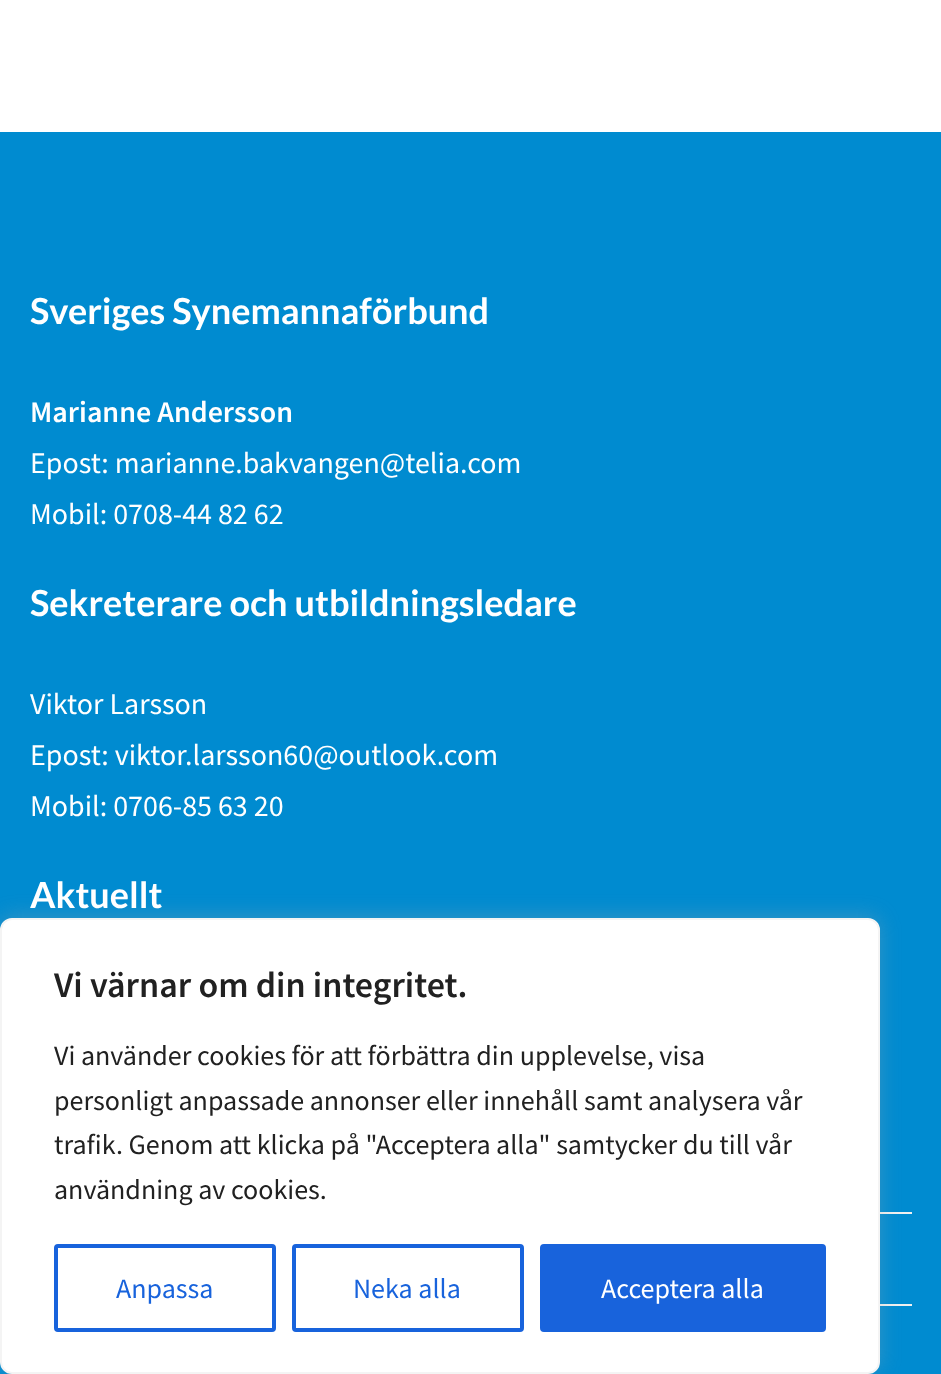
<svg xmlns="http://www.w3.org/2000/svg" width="941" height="1374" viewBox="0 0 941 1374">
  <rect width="100%" height="100%" fill="#fff"/>
  <path d="M0 132h941v1242H0z" fill="#008bd0"/>
  <path d="M880 1212h32v2H880z" fill="#f0f0f0"/>
  <path d="M880 1304h32v2H880z" fill="#f0f0f0"/>
  <rect y="916" width="880" height="456" rx="12" fill="#acabab4d" filter="blur(10px)"/>
  <rect x="1" y="919" width="878" height="454" rx="11" fill="#fff" stroke="#f4f4f4" stroke-width="2"/>
  <rect x="56" y="1246" width="218" height="84" rx="2" fill="none" stroke="#1863dc" stroke-width="4"/>
  <rect x="294" y="1246" width="228" height="84" rx="2" fill="none" stroke="#1863dc" stroke-width="4"/>
  <rect x="542" y="1246" width="282" height="84" rx="2" fill="#1863dc" stroke="#1863dc" stroke-width="4"/>
  <text x="30" y="324" font-family="Lato" font-size="36" font-weight="bold" fill="#fff">Sveriges Synemannaförbund</text>
  <text x="30" y="422" font-family="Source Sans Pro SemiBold" font-size="30" font-weight="600" fill="#fff">Marianne Andersson</text>
  <g font-family="Source Sans Pro" font-size="30" fill="#fff">
    <text x="30" y="473">Epost: marianne.bakvangen@telia.com</text>
    <text x="30" y="524">Mobil: 0708-44 82 62</text>
  </g>
  <text x="30" y="616" font-family="Lato" font-size="36" font-weight="bold" fill="#fff">Sekreterare och utbildningsledare</text>
  <g font-family="Source Sans Pro" font-size="30" fill="#fff">
    <text x="30" y="714">Viktor Larsson</text>
    <text x="30" y="765">Epost: viktor.larsson60@outlook.com</text>
    <text x="30" y="816">Mobil: 0706-85 63 20</text>
  </g>
  <text x="30" y="908" font-family="Lato" font-size="36" font-weight="bold" fill="#fff">Aktuellt</text>
  <text x="54" y="997" font-family="Source Sans Pro SemiBold" font-size="36" font-weight="600" fill="#212121">Vi värnar om din integritet.</text>
  <g font-family="Source Sans Pro" font-size="28" fill="#212121">
    <text x="54" y="1065">Vi använder cookies för att förbättra din upplevelse, visa</text>
    <text x="54" y="1110">personligt anpassade annonser eller innehåll samt analysera vår</text>
    <text x="54" y="1154">trafik. Genom att klicka på "Acceptera alla" samtycker du till vår</text>
    <text x="54" y="1199">användning av cookies.</text>
  </g>
  <g font-family="Source Sans Pro" font-size="28" fill="#1863dc">
    <text x="116" y="1298">Anpassa</text>
    <text x="353" y="1298">Neka alla</text>
  </g>
  <text x="601" y="1298" font-family="Source Sans Pro" font-size="28" fill="#fff">Acceptera alla</text>
</svg>
